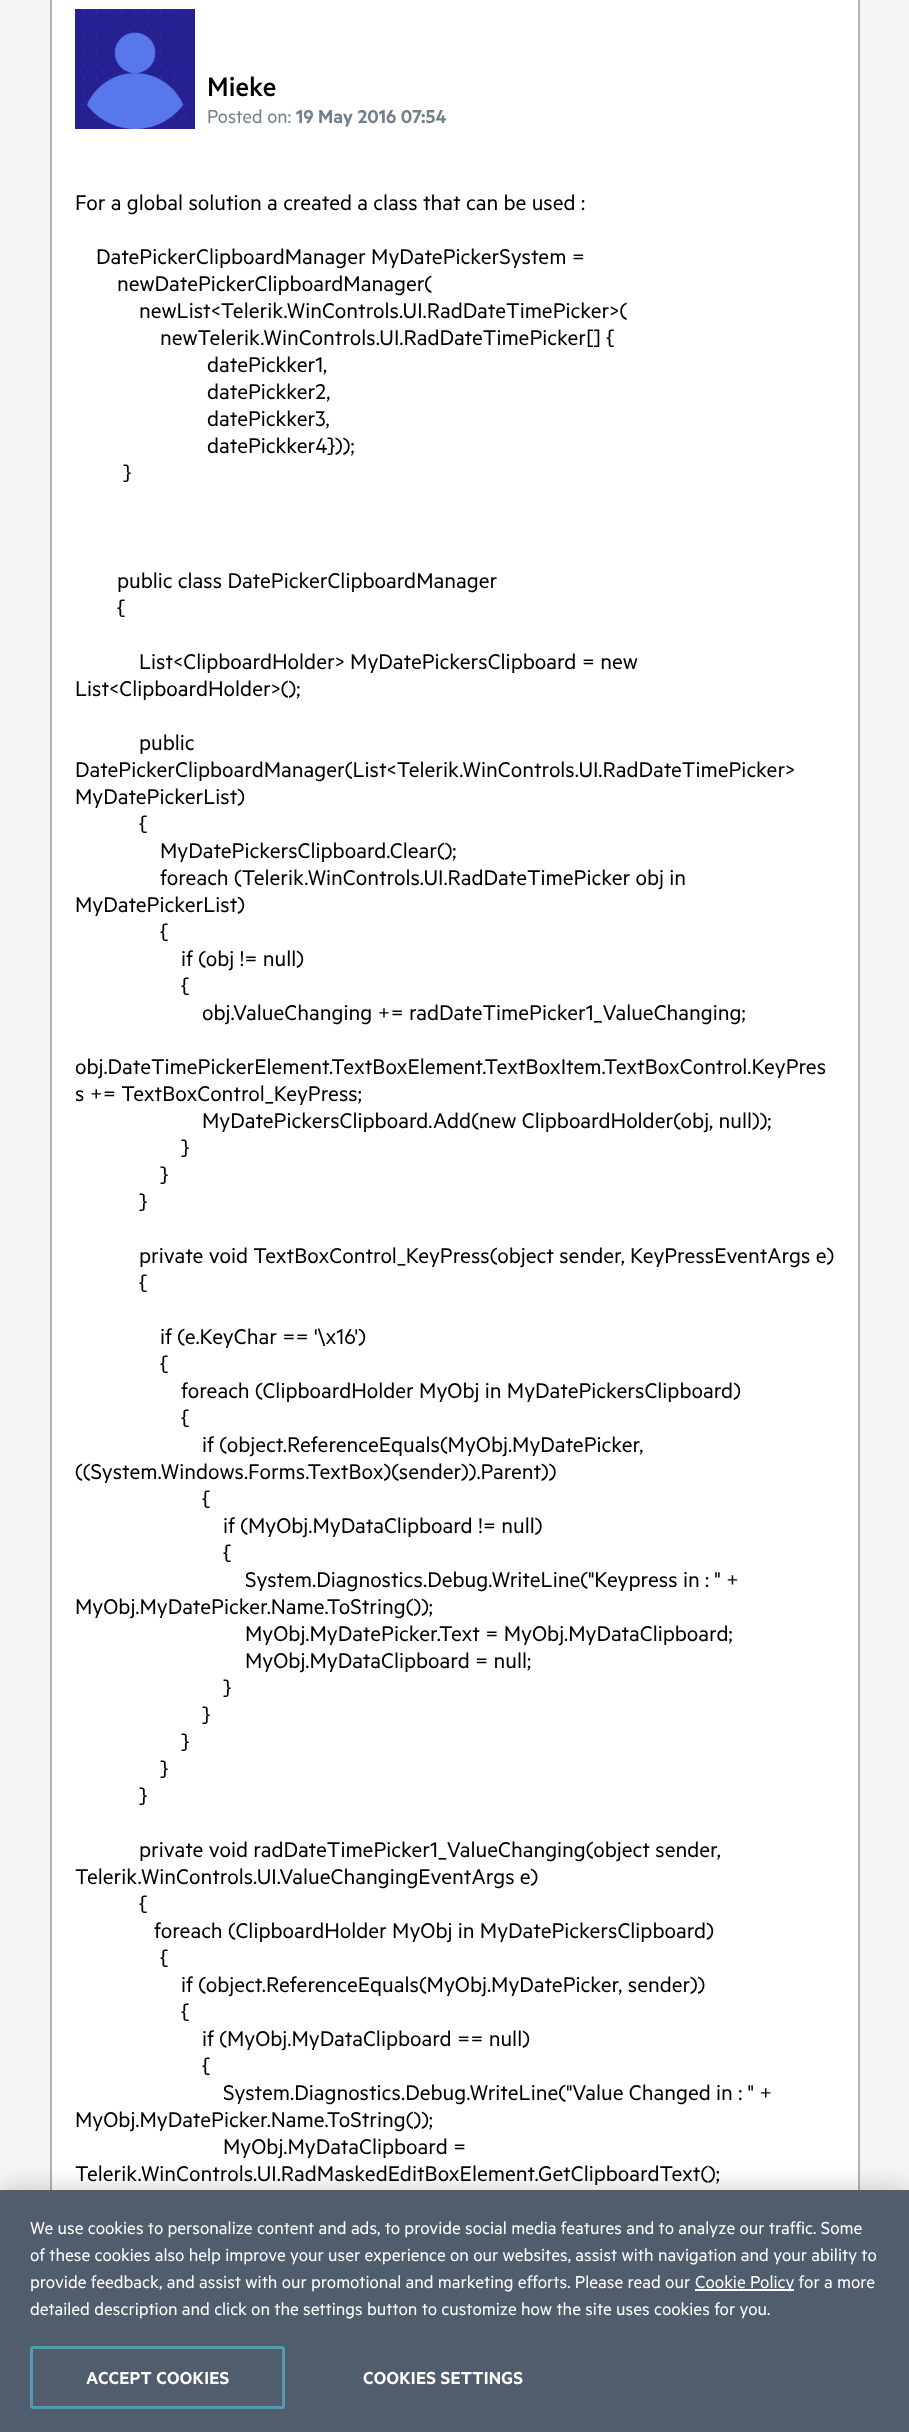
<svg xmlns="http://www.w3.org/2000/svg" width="909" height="2432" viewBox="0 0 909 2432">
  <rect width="100%" height="100%" fill="#f5f5f5"/>
  <path d="M52 0h806v2190H52z" fill="#fff"/>
  <path d="M51 -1h808v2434H51z" fill="none" stroke="#b3b3b3" stroke-width="2"/>
  <image x="75" y="9" width="120" height="120" href="img/1.png"/>
  <path d="M0 2190h909v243H0z" fill="#00000033" filter="blur(13.5px)"/>
  <path d="M0 2190h909v242H0z" fill="#4f5d6c"/>
  <path d="M695 2289h99v2H695z" fill="#fff"/>
  <rect x="31.5" y="2347.5" width="252" height="60" rx="1.5" fill="none" stroke="#5699b6" stroke-width="3"/>
  <text x="207" y="96" font-family="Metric" font-size="30" font-weight="500" fill="#000">Mieke</text>
  <text x="207" y="123" font-family="Metric" font-size="21" fill="#71808f">Posted on:</text>
  <text x="296" y="123" font-family="Metric" font-size="21" font-weight="600" fill="#71808f">19 May 2016 07:54</text>
  <g font-family="Metric" font-size="24" fill="#000">
    <text x="75" y="210">For a global solution a created a class that can be used :</text>
    <text x="96" y="264">DatePickerClipboardManager MyDatePickerSystem =</text>
    <text x="117" y="291">newDatePickerClipboardManager(</text>
    <text x="139" y="318">newList&lt;Telerik.WinControls.UI.RadDateTimePicker&gt;(</text>
    <text x="160" y="345">newTelerik.WinControls.UI.RadDateTimePicker[] {</text>
    <text x="207" y="372">datePickker1,</text>
    <text x="207" y="399">datePickker2,</text>
    <text x="207" y="426">datePickker3,</text>
    <text x="207" y="453">datePickker4}));</text>
    <text x="123" y="480">}</text>
    <text x="117" y="588">public class DatePickerClipboardManager</text>
    <text x="117" y="615">{</text>
    <text x="139" y="669">List&lt;ClipboardHolder&gt; MyDatePickersClipboard = new</text>
    <text x="75" y="696">List&lt;ClipboardHolder&gt;();</text>
    <text x="139" y="750">public</text>
    <text x="75" y="777">DatePickerClipboardManager(List&lt;Telerik.WinControls.UI.RadDateTimePicker&gt;</text>
    <text x="75" y="804">MyDatePickerList)</text>
    <text x="139" y="831">{</text>
    <text x="160" y="858">MyDatePickersClipboard.Clear();</text>
    <text x="160" y="885">foreach (Telerik.WinControls.UI.RadDateTimePicker obj in</text>
    <text x="75" y="912">MyDatePickerList)</text>
    <text x="160" y="939">{</text>
    <text x="181" y="966">if (obj != null)</text>
    <text x="181" y="993">{</text>
    <text x="202" y="1020">obj.ValueChanging += radDateTimePicker1_ValueChanging;</text>
    <text x="75" y="1074">obj.DateTimePickerElement.TextBoxElement.TextBoxItem.TextBoxControl.KeyPres</text>
    <text x="75" y="1101">s += TextBoxControl_KeyPress;</text>
    <text x="202" y="1128">MyDatePickersClipboard.Add(new ClipboardHolder(obj, null));</text>
    <text x="181" y="1155">}</text>
    <text x="160" y="1182">}</text>
    <text x="139" y="1209">}</text>
    <text x="139" y="1263">private void TextBoxControl_KeyPress(object sender, KeyPressEventArgs e)</text>
    <text x="139" y="1290">{</text>
    <text x="160" y="1344">if (e.KeyChar == '\x16')</text>
    <text x="160" y="1371">{</text>
    <text x="181" y="1398">foreach (ClipboardHolder MyObj in MyDatePickersClipboard)</text>
    <text x="181" y="1425">{</text>
    <text x="202" y="1452">if (object.ReferenceEquals(MyObj.MyDatePicker,</text>
    <text x="75" y="1479">((System.Windows.Forms.TextBox)(sender)).Parent))</text>
    <text x="202" y="1506">{</text>
    <text x="223" y="1533">if (MyObj.MyDataClipboard != null)</text>
    <text x="223" y="1560">{</text>
    <text x="245" y="1587">System.Diagnostics.Debug.WriteLine("Keypress in : " +</text>
    <text x="75" y="1614">MyObj.MyDatePicker.Name.ToString());</text>
    <text x="245" y="1641">MyObj.MyDatePicker.Text = MyObj.MyDataClipboard;</text>
    <text x="245" y="1668">MyObj.MyDataClipboard = null;</text>
    <text x="223" y="1695">}</text>
    <text x="202" y="1722">}</text>
    <text x="181" y="1749">}</text>
    <text x="160" y="1776">}</text>
    <text x="139" y="1803">}</text>
    <text x="139" y="1857">private void radDateTimePicker1_ValueChanging(object sender,</text>
    <text x="75" y="1884">Telerik.WinControls.UI.ValueChangingEventArgs e)</text>
    <text x="139" y="1911">{</text>
    <text x="154" y="1938">foreach (ClipboardHolder MyObj in MyDatePickersClipboard)</text>
    <text x="160" y="1965">{</text>
    <text x="181" y="1992">if (object.ReferenceEquals(MyObj.MyDatePicker, sender))</text>
    <text x="181" y="2019">{</text>
    <text x="202" y="2046">if (MyObj.MyDataClipboard == null)</text>
    <text x="202" y="2073">{</text>
    <text x="223" y="2100">System.Diagnostics.Debug.WriteLine("Value Changed in : " +</text>
    <text x="75" y="2127">MyObj.MyDatePicker.Name.ToString());</text>
    <text x="223" y="2154">MyObj.MyDataClipboard =</text>
    <text x="75" y="2181">Telerik.WinControls.UI.RadMaskedEditBoxElement.GetClipboardText();</text>
  </g>
  <g font-family="Metric" font-size="19.5" fill="#fff">
    <text x="30" y="2234">We use cookies to personalize content and ads, to provide social media features and to analyze our traffic. Some</text>
    <text x="30" y="2261">of these cookies also help improve your user experience on our websites, assist with navigation and your ability to</text>
    <text x="30" y="2288">provide feedback, and assist with our promotional and marketing efforts. Please read our</text>
    <text x="695" y="2288">Cookie Policy for a more</text>
    <text x="30" y="2315">detailed description and click on the settings button to customize how the site uses cookies for you.</text>
  </g>
  <g font-family="Metric" font-size="19.5" font-weight="600" letter-spacing="0.25" fill="#fff">
    <text x="86" y="2384">ACCEPT COOKIES</text>
    <text x="363" y="2384">COOKIES SETTINGS</text>
  </g>
</svg>
